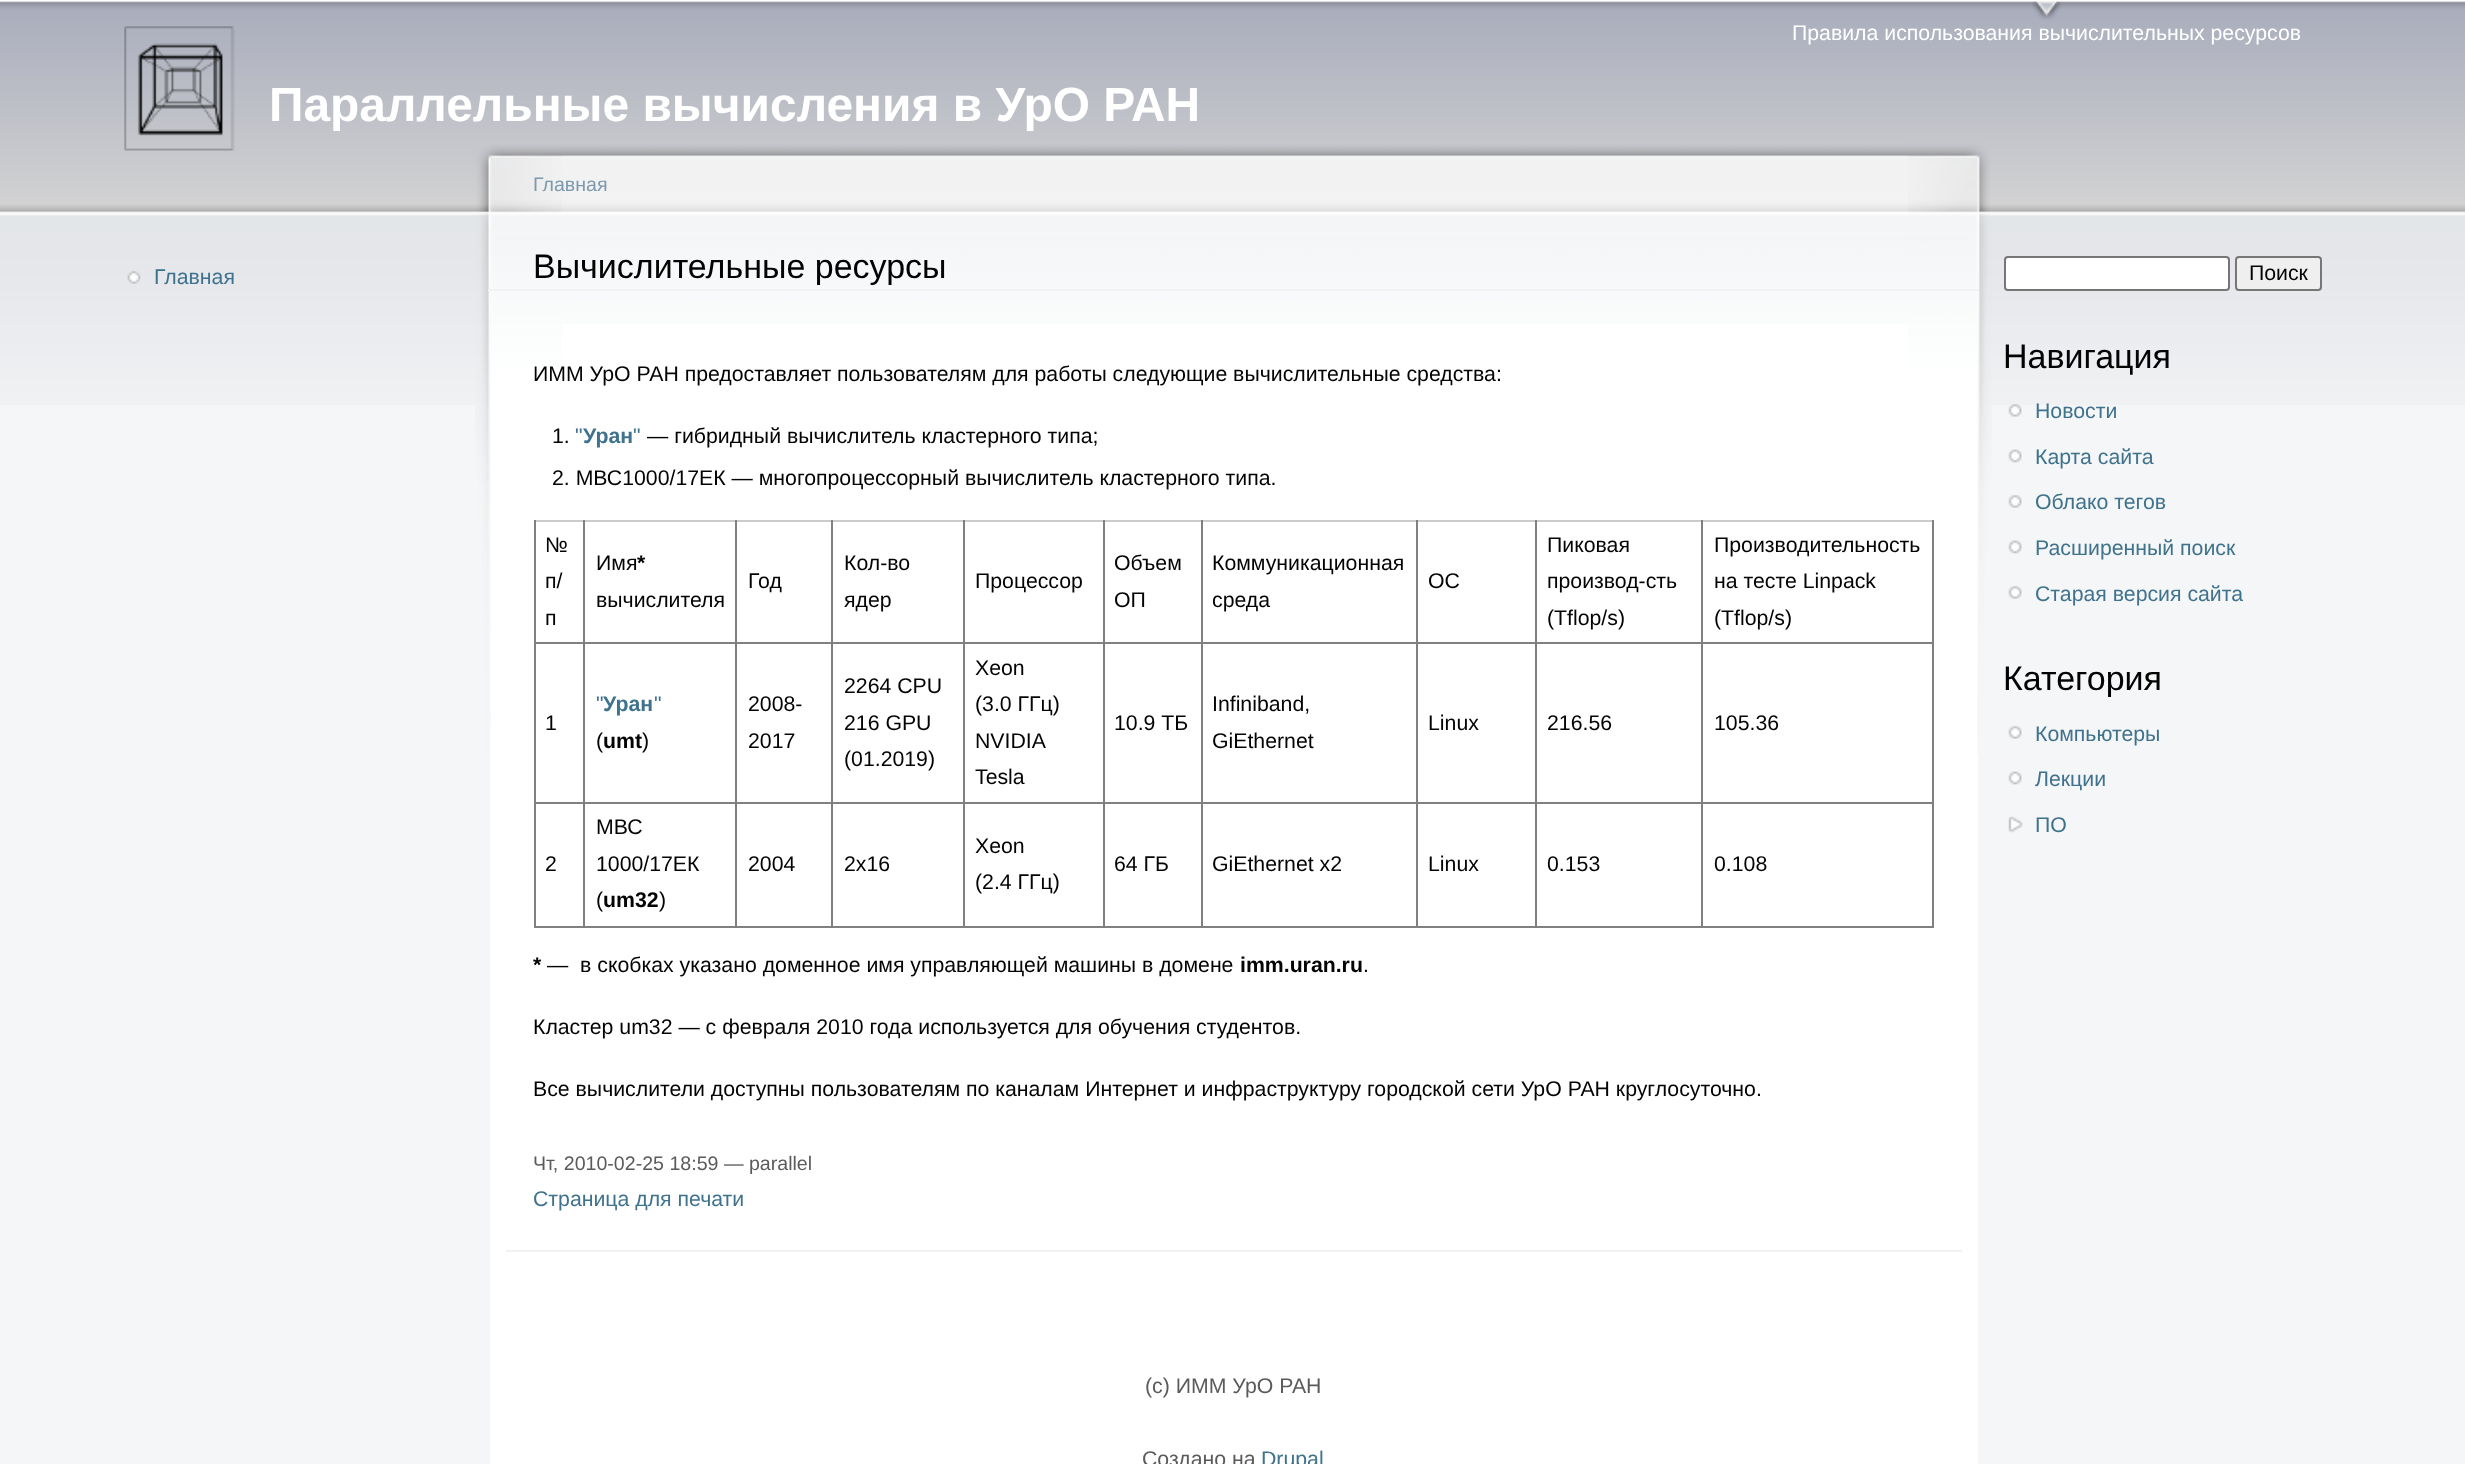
<svg xmlns="http://www.w3.org/2000/svg" width="2465" height="1464" viewBox="0 0 2465 1464">
  <rect width="100%" height="100%" fill="#f5f6f7"/>
  <image x="0" y="0" width="2465" height="405" href="img/1.png"/>
  <image x="2032" y="1" width="30" height="19" href="img/2.png"/>
  <image x="124" y="26" width="111" height="125" href="img/3.png"/>
  <image x="127" y="271" width="14" height="13" href="img/4.png"/>
  <path d="M490 324h1488v1140H490z" fill="#fff"/>
  <image x="490" y="140" width="1418" height="184" href="img/5.png"/>
  <image x="1908" y="140" width="84" height="616" href="img/6.png"/>
  <image x="475" y="147" width="87" height="609" href="img/7.png"/>
  <path d="M488 289h1491v2H488z" fill="#f2f2f2"/>
  <path d="M506 1250h1456v2H506z" fill="#f2f2f2"/>
  <path d="M534 926h1400v2H534z" fill="#808080"/>
  <path d="M534 520h1400v2H534z" fill="#ccc"/>
  <path d="M1701 802h2v126H1701z" fill="#808080"/>
  <path d="M1932 520h2v408H1932z" fill="#808080"/>
  <path d="M1701 802h233v2H1701z" fill="#808080"/>
  <path d="M1701 642h2v161H1701z" fill="#808080"/>
  <path d="M1701 642h233v2H1701z" fill="#808080"/>
  <path d="M1701 520h2v124H1701z" fill="#808080"/>
  <path d="M1535 802h2v126H1535z" fill="#808080"/>
  <path d="M1535 802h168v2H1535z" fill="#808080"/>
  <path d="M1535 642h2v161H1535z" fill="#808080"/>
  <path d="M1535 642h168v2H1535z" fill="#808080"/>
  <path d="M1535 520h2v124H1535z" fill="#808080"/>
  <path d="M1416 802h2v126H1416z" fill="#808080"/>
  <path d="M1416 802h121v2H1416z" fill="#808080"/>
  <path d="M1416 642h2v161H1416z" fill="#808080"/>
  <path d="M1416 642h121v2H1416z" fill="#808080"/>
  <path d="M1416 520h2v124H1416z" fill="#808080"/>
  <path d="M1201 802h2v126H1201z" fill="#808080"/>
  <path d="M1201 802h217v2H1201z" fill="#808080"/>
  <path d="M1201 642h2v161H1201z" fill="#808080"/>
  <path d="M1201 642h217v2H1201z" fill="#808080"/>
  <path d="M1201 520h2v124H1201z" fill="#808080"/>
  <path d="M1103 802h2v126H1103z" fill="#808080"/>
  <path d="M1103 802h99v2H1103z" fill="#808080"/>
  <path d="M1103 642h2v161H1103z" fill="#808080"/>
  <path d="M1103 642h99v2H1103z" fill="#808080"/>
  <path d="M1103 520h2v124H1103z" fill="#808080"/>
  <path d="M963 802h2v126H963z" fill="#808080"/>
  <path d="M963 802h141v2H963z" fill="#808080"/>
  <path d="M963 642h2v161H963z" fill="#808080"/>
  <path d="M963 642h141v2H963z" fill="#808080"/>
  <path d="M963 520h2v124H963z" fill="#808080"/>
  <path d="M831 802h2v126H831z" fill="#808080"/>
  <path d="M831 802h133v2H831z" fill="#808080"/>
  <path d="M831 642h2v161H831z" fill="#808080"/>
  <path d="M831 642h133v2H831z" fill="#808080"/>
  <path d="M831 520h2v124H831z" fill="#808080"/>
  <path d="M735 802h2v126H735z" fill="#808080"/>
  <path d="M735 802h98v2H735z" fill="#808080"/>
  <path d="M735 642h2v161H735z" fill="#808080"/>
  <path d="M735 642h98v2H735z" fill="#808080"/>
  <path d="M735 520h2v124H735z" fill="#808080"/>
  <path d="M583 802h2v126H583z" fill="#808080"/>
  <path d="M583 802h154v2H583z" fill="#808080"/>
  <path d="M583 642h2v161H583z" fill="#808080"/>
  <path d="M583 642h154v2H583z" fill="#808080"/>
  <path d="M583 520h2v124H583z" fill="#808080"/>
  <path d="M534 802h2v126H534z" fill="#808080"/>
  <path d="M534 802h51v2H534z" fill="#808080"/>
  <path d="M534 642h2v161H534z" fill="#808080"/>
  <path d="M534 642h51v2H534z" fill="#808080"/>
  <path d="M534 520h2v124H534z" fill="#808080"/>
  <rect x="2005" y="257" width="224" height="33" rx="3" fill="#fff" stroke="#767676" stroke-width="2"/>
  <rect x="2236" y="257" width="85" height="33" rx="3" fill="#efefef" stroke="#767676" stroke-width="2"/>
  <image x="2008" y="404" width="14" height="13" href="img/8.png"/>
  <image x="2008" y="449" width="14" height="14" href="img/9.png"/>
  <image x="2008" y="495" width="14" height="13" href="img/10.png"/>
  <image x="2008" y="540" width="14" height="14" href="img/9.png"/>
  <image x="2008" y="586" width="14" height="13" href="img/10.png"/>
  <image x="2008" y="726" width="14" height="13" href="img/10.png"/>
  <image x="2008" y="771" width="14" height="14" href="img/9.png"/>
  <image x="2008" y="815" width="15" height="18" href="img/11.png"/>
  <text x="1792" y="40" font-family="Liberation Sans" font-size="21.28" fill="#fff">Правила использования вычислительных ресурсов</text>
  <text x="269" y="121" font-family="Liberation Sans" font-size="47.9" font-weight="bold" fill="#fff">Параллельные вычисления в УрО РАН</text>
  <text x="154" y="284" font-family="Liberation Sans" font-size="21.28" fill="#3f728d">Главная</text>
  <text x="533" y="191" font-family="Liberation Sans" font-size="19.6" fill="#7c99ae">Главная</text>
  <text x="533" y="278" font-family="Liberation Sans" font-size="34" fill="#030303">Вычислительные ресурсы</text>
  <g font-family="Liberation Sans" font-size="21.28" fill="#030303">
    <text x="533" y="381">ИММ УрО РАН предоставляет пользователям для работы следующие вычислительные средства:</text>
    <text x="552" y="443">1.</text>
  </g>
  <text x="575" y="443" font-family="Liberation Sans" font-size="21.28" fill="#3f728d">"</text>
  <text x="583" y="443" font-family="Liberation Sans" font-size="21.28" font-weight="bold" fill="#3f728d">Уран</text>
  <text x="633" y="443" font-family="Liberation Sans" font-size="21.28" fill="#3f728d">"</text>
  <g font-family="Liberation Sans" font-size="21.28" fill="#030303">
    <text x="647" y="443">— гибридный вычислитель кластерного типа;</text>
    <text x="552" y="485">2. МВС1000/17ЕК — многопроцессорный вычислитель кластерного типа.</text>
    <text x="545" y="552">№</text>
    <text x="545" y="588">п/</text>
    <text x="545" y="625">п</text>
    <text x="596" y="570">Имя</text>
  </g>
  <text x="637" y="570" font-family="Liberation Sans" font-size="21.28" font-weight="bold" fill="#030303">*</text>
  <g font-family="Liberation Sans" font-size="21.28" fill="#030303">
    <text x="596" y="607">вычислителя</text>
    <text x="748" y="588">Год</text>
    <text x="844" y="570">Кол-во</text>
    <text x="844" y="607">ядер</text>
    <text x="975" y="588">Процессор</text>
    <text x="1114" y="570">Объем</text>
    <text x="1114" y="607">ОП</text>
    <text x="1212" y="570">Коммуникационная</text>
    <text x="1212" y="607">среда</text>
    <text x="1428" y="588">ОС</text>
    <text x="1547" y="552">Пиковая</text>
    <text x="1547" y="588">производ-сть</text>
    <text x="1547" y="625">(Tflop/s)</text>
    <text x="1714" y="552">Производительность</text>
    <text x="1714" y="588">на тесте Linpack</text>
    <text x="1714" y="625">(Tflop/s)</text>
    <text x="545" y="730">1</text>
  </g>
  <text x="596" y="711" font-family="Liberation Sans" font-size="21.28" fill="#3f728d">"</text>
  <text x="603" y="711" font-family="Liberation Sans" font-size="21.28" font-weight="bold" fill="#3f728d">Уран</text>
  <text x="654" y="711" font-family="Liberation Sans" font-size="21.28" fill="#3f728d">"</text>
  <text x="596" y="748" font-family="Liberation Sans" font-size="21.28" fill="#030303">(</text>
  <text x="603" y="748" font-family="Liberation Sans" font-size="21.28" font-weight="bold" fill="#030303">umt</text>
  <g font-family="Liberation Sans" font-size="21.28" fill="#030303">
    <text x="642" y="748">)</text>
    <text x="748" y="711">2008-</text>
    <text x="748" y="748">2017</text>
    <text x="844" y="693">2264 CPU</text>
    <text x="844" y="730">216 GPU</text>
    <text x="844" y="766">(01.2019)</text>
    <text x="975" y="675">Xeon</text>
    <text x="975" y="711">(3.0 ГГц)</text>
    <text x="975" y="748">NVIDIA</text>
    <text x="975" y="784">Tesla</text>
    <text x="1114" y="730">10.9 ТБ</text>
    <text x="1212" y="711">Infiniband,</text>
    <text x="1212" y="748">GiEthernet</text>
    <text x="1428" y="730">Linux</text>
    <text x="1547" y="730">216.56</text>
    <text x="1714" y="730">105.36</text>
    <text x="545" y="871">2</text>
    <text x="596" y="834">МВС</text>
    <text x="596" y="871">1000/17ЕК</text>
    <text x="596" y="907">(</text>
  </g>
  <text x="603" y="907" font-family="Liberation Sans" font-size="21.28" font-weight="bold" fill="#030303">um32</text>
  <g font-family="Liberation Sans" font-size="21.28" fill="#030303">
    <text x="659" y="907">)</text>
    <text x="748" y="871">2004</text>
    <text x="844" y="871">2x16</text>
    <text x="975" y="853">Xeon</text>
    <text x="975" y="889">(2.4 ГГц)</text>
    <text x="1114" y="871">64 ГБ</text>
    <text x="1212" y="871">GiEthernet x2</text>
    <text x="1428" y="871">Linux</text>
    <text x="1547" y="871">0.153</text>
    <text x="1714" y="871">0.108</text>
  </g>
  <text x="533" y="972" font-family="Liberation Sans" font-size="21.28" font-weight="bold" fill="#030303">*</text>
  <text x="547" y="972" font-family="Liberation Sans" font-size="21.28" fill="#030303" xml:space="preserve">—  в скобках указано доменное имя управляющей машины в домене</text>
  <text x="1240" y="972" font-family="Liberation Sans" font-size="21.28" font-weight="bold" fill="#030303">imm.uran.ru</text>
  <g font-family="Liberation Sans" font-size="21.28" fill="#030303">
    <text x="1363" y="972">.</text>
    <text x="533" y="1034">Кластер um32 — с февраля 2010 года используется для обучения студентов.</text>
    <text x="533" y="1096">Все вычислители доступны пользователям по каналам Интернет и инфраструктуру городской сети УрО РАН круглосуточно.</text>
  </g>
  <text x="533" y="1170" font-family="Liberation Sans" font-size="19.6" fill="#5b5b5b">Чт, 2010-02-25 18:59 — parallel</text>
  <text x="533" y="1206" font-family="Liberation Sans" font-size="21.28" fill="#3f728d">Страница для печати</text>
  <g font-family="Liberation Sans" font-size="21.28" fill="#5b5b5b">
    <text x="1145" y="1393">(с) ИММ УрО РАН</text>
    <text x="1142" y="1466">Создано на</text>
  </g>
  <text x="1261" y="1466" font-family="Liberation Sans" font-size="21.28" fill="#3f728d">Drupal</text>
  <text x="2249" y="280" font-family="Liberation Sans" font-size="21.28" fill="#030303">Поиск</text>
  <text x="2003" y="368" font-family="Liberation Sans" font-size="34" fill="#030303">Навигация</text>
  <g font-family="Liberation Sans" font-size="21.28" fill="#3f728d">
    <text x="2035" y="418">Новости</text>
    <text x="2035" y="464">Карта сайта</text>
    <text x="2035" y="509">Облако тегов</text>
    <text x="2035" y="555">Расширенный поиск</text>
    <text x="2035" y="601">Старая версия сайта</text>
  </g>
  <text x="2003" y="690" font-family="Liberation Sans" font-size="34" fill="#030303">Категория</text>
  <g font-family="Liberation Sans" font-size="21.28" fill="#3f728d">
    <text x="2035" y="741">Компьютеры</text>
    <text x="2035" y="786">Лекции</text>
    <text x="2035" y="832">ПО</text>
  </g>
</svg>
